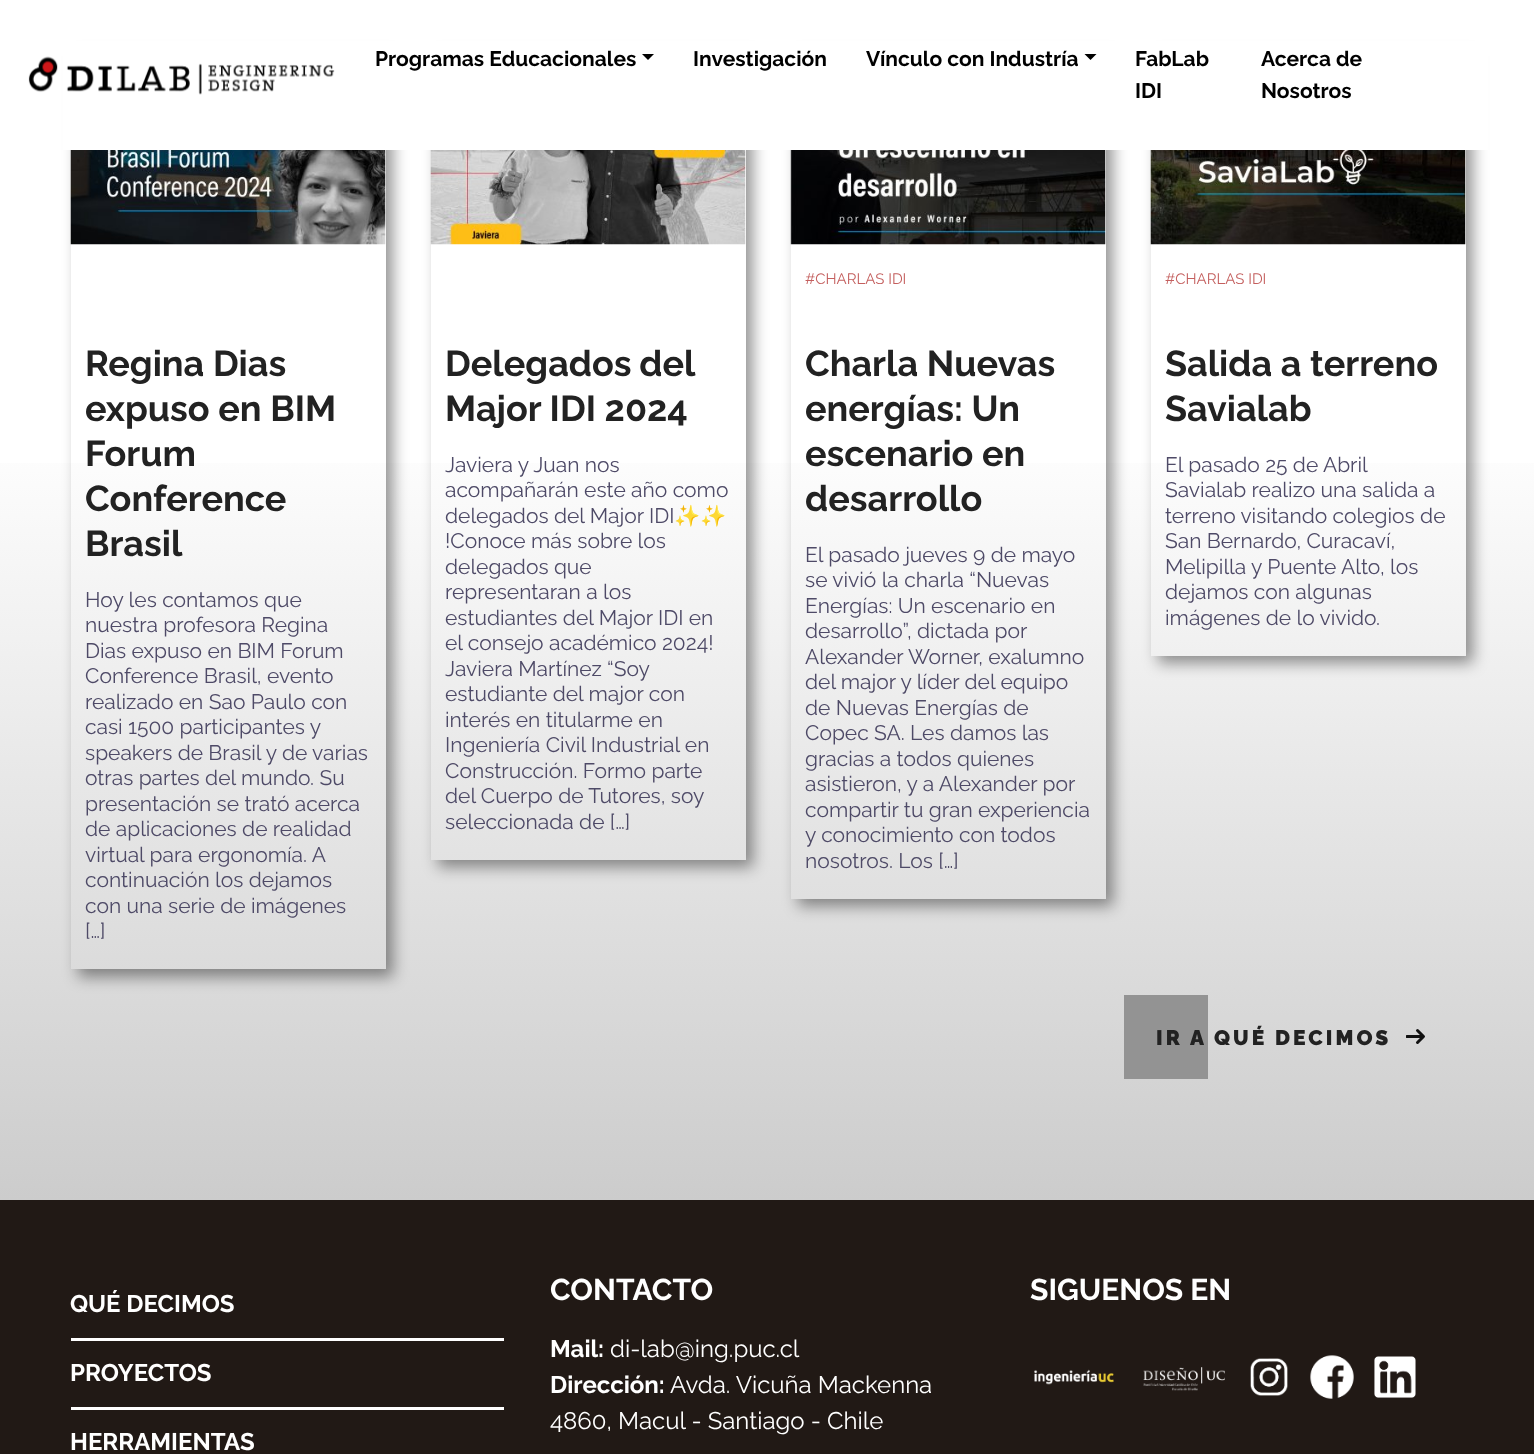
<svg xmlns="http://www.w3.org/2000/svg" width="1534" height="1454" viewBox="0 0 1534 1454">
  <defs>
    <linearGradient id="g1" gradientUnits="userSpaceOnUse" x1="767" y1="-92" x2="767" y2="1200"><stop offset="0.4" stop-color="#fff"/><stop offset="1" stop-color="#ccc"/></linearGradient>
    <clipPath id="clip1"><path d="M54 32H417V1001H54ZM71 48H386V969H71Z" clip-rule="evenodd"/></clipPath>
    <clipPath id="clip2"><path d="M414 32H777V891H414ZM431 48H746V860H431Z" clip-rule="evenodd"/></clipPath>
    <clipPath id="clip3"><path d="M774 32H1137V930H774ZM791 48H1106V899H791Z" clip-rule="evenodd"/></clipPath>
    <clipPath id="clip4"><path d="M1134 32H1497V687H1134ZM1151 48H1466V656H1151Z" clip-rule="evenodd"/></clipPath>
    <clipPath id="clip5"><path d="M1406 1029h19v15H1406z"/></clipPath>
  </defs>
  <rect width="100%" height="100%" fill="#fff"/>
  <path d="M0 463h1534v737H0z" fill="url(#g1)"/>
  <g clip-path="url(#clip1)">
    <path d="M78 56h315v921H78z" fill="#0000006b" filter="blur(7.5px)"/>
  </g>
  <g clip-path="url(#clip2)">
    <path d="M438 56h315v811H438z" fill="#0000006b" filter="blur(7.5px)"/>
  </g>
  <g clip-path="url(#clip3)">
    <path d="M798 56h315v850H798z" fill="#0000006b" filter="blur(7.5px)"/>
  </g>
  <g clip-path="url(#clip4)">
    <path d="M1158 56h315v607H1158z" fill="#0000006b" filter="blur(7.5px)"/>
  </g>
  <path d="M63 41h1425v109H63z" fill="#fff"/>
  <image x="28" y="56" width="307" height="39" href="img/1.png"/>
  <path d="M642 54H654L648 60Z" fill="#000"/>
  <path d="M1084.5 54H1096.5L1090.5 60Z" fill="#000"/>
  <image x="70" y="150" width="316" height="95" href="img/2.png"/>
  <image x="430" y="150" width="316" height="95" href="img/3.png"/>
  <image x="790" y="150" width="316" height="95" href="img/4.png"/>
  <image x="1150" y="150" width="316" height="95" href="img/5.png"/>
  <path d="M1124 995h84v84H1124z" fill="#939393"/>
  <g clip-path="url(#clip5)">
    <path d="M1407 1036.5H1422" fill="none" stroke="#111" stroke-width="3" stroke-linecap="round" stroke-linejoin="round"/>
  </g>
  <path d="M1417.5 1030.5L1423.5 1036.5L1417.5 1042.5" fill="none" stroke="#111" stroke-width="3" stroke-linecap="round" stroke-linejoin="round"/>
  <path d="M0 1200h1534v254H0z" fill="#211915"/>
  <path d="M71 1338h433v3H71z" fill="#fff"/>
  <path d="M71 1407h433v3H71z" fill="#fff"/>
  <image x="1034" y="1369" width="80" height="16" href="img/6.png"/>
  <image x="1143" y="1367" width="82" height="24" href="img/7.png"/>
  <image x="1250" y="1358" width="38" height="38" href="img/8.png"/>
  <image x="1310" y="1355" width="44" height="44" href="img/9.png"/>
  <image x="1374" y="1356" width="42" height="42" href="img/10.png"/>
  <g font-family="Raleway" font-size="21" font-weight="bold" fill="#000">
    <text x="375" y="66">Programas Educacionales</text>
    <text x="693" y="66">Investigación</text>
    <text x="866" y="66">Vínculo con Industría</text>
    <text x="1135" y="66">FabLab</text>
    <text x="1135" y="98">IDI</text>
    <text x="1261" y="66">Acerca de</text>
    <text x="1261" y="98">Nosotros</text>
  </g>
  <g font-family="Raleway" font-size="36" font-weight="bold" fill="#222">
    <text x="85" y="376">Regina Dias</text>
    <text x="85" y="421">expuso en BIM</text>
    <text x="85" y="466">Forum</text>
    <text x="85" y="511">Conference</text>
    <text x="85" y="556">Brasil</text>
  </g>
  <g font-family="Raleway" font-size="21" fill="#4e4a67">
    <text x="85" y="607">Hoy les contamos que</text>
    <text x="85" y="632">nuestra profesora Regina</text>
    <text x="85" y="658">Dias expuso en BIM Forum</text>
    <text x="85" y="683">Conference Brasil, evento</text>
    <text x="85" y="709">realizado en Sao Paulo con</text>
    <text x="85" y="734">casi 1500 participantes y</text>
    <text x="85" y="760">speakers de Brasil y de varias</text>
    <text x="85" y="785">otras partes del mundo. Su</text>
    <text x="85" y="811">presentación se trató acerca</text>
    <text x="85" y="836">de aplicaciones de realidad</text>
    <text x="85" y="862">virtual para ergonomía. A</text>
    <text x="85" y="887">continuación los dejamos</text>
    <text x="85" y="913">con una serie de imágenes</text>
    <text x="85" y="938">[…]</text>
  </g>
  <g font-family="Raleway" font-size="36" font-weight="bold" fill="#222">
    <text x="445" y="376" word-spacing="-1">Delegados del</text>
    <text x="445" y="421">Major IDI 2024</text>
  </g>
  <g font-family="Raleway" font-size="21" fill="#4e4a67">
    <text x="445" y="472">Javiera y Juan nos</text>
    <text x="445" y="497">acompañarán este año como</text>
    <text x="445" y="523">delegados del Major IDI</text>
  </g>
  <text x="674" y="523" font-family="Noto Color Emoji" font-size="21" fill="#4e4a67">✨✨</text>
  <g font-family="Raleway" font-size="21" fill="#4e4a67">
    <text x="445" y="548">!Conoce más sobre los</text>
    <text x="445" y="574">delegados que</text>
    <text x="445" y="599">representaran a los</text>
    <text x="445" y="625">estudiantes del Major IDI en</text>
    <text x="445" y="650">el consejo académico 2024!</text>
    <text x="445" y="676">Javiera Martínez “Soy</text>
    <text x="445" y="701">estudiante del major con</text>
    <text x="445" y="727">interés en titularme en</text>
    <text x="445" y="752">Ingeniería Civil Industrial en</text>
    <text x="445" y="778">Construcción. Formo parte</text>
    <text x="445" y="803">del Cuerpo de Tutores, soy</text>
    <text x="445" y="829">seleccionada de […]</text>
  </g>
  <text x="805" y="284" font-family="Raleway" font-size="15" fill="#c45f5e">#CHARLAS IDI</text>
  <g font-family="Raleway" font-size="36" font-weight="bold" fill="#222">
    <text x="805" y="376">Charla Nuevas</text>
    <text x="805" y="421">energías: Un</text>
    <text x="805" y="466">escenario en</text>
    <text x="805" y="511">desarrollo</text>
  </g>
  <g font-family="Raleway" font-size="21" fill="#4e4a67">
    <text x="805" y="562">El pasado jueves 9 de mayo</text>
    <text x="805" y="587">se vivió la charla “Nuevas</text>
    <text x="805" y="613">Energías: Un escenario en</text>
    <text x="805" y="638">desarrollo”, dictada por</text>
    <text x="805" y="664">Alexander Worner, exalumno</text>
    <text x="805" y="689">del major y líder del equipo</text>
    <text x="805" y="715">de Nuevas Energías de</text>
    <text x="805" y="740">Copec SA. Les damos las</text>
    <text x="805" y="766">gracias a todos quienes</text>
    <text x="805" y="791">asistieron, y a Alexander por</text>
    <text x="805" y="817">compartir tu gran experiencia</text>
    <text x="805" y="842">y conocimiento con todos</text>
    <text x="805" y="868">nosotros. Los […]</text>
  </g>
  <text x="1165" y="284" font-family="Raleway" font-size="15" fill="#c45f5e">#CHARLAS IDI</text>
  <g font-family="Raleway" font-size="36" font-weight="bold" fill="#222">
    <text x="1165" y="376">Salida a terreno</text>
    <text x="1165" y="421">Savialab</text>
  </g>
  <g font-family="Raleway" font-size="21" fill="#4e4a67">
    <text x="1165" y="472">El pasado 25 de Abril</text>
    <text x="1165" y="497">Savialab realizo una salida a</text>
    <text x="1165" y="523">terreno visitando colegios de</text>
    <text x="1165" y="548">San Bernardo, Curacaví,</text>
    <text x="1165" y="574">Melipilla y Puente Alto, los</text>
    <text x="1165" y="599">dejamos con algunas</text>
    <text x="1165" y="625">imágenes de lo vivido.</text>
  </g>
  <text x="1156" y="1045" font-family="Raleway" font-size="21" font-weight="900" letter-spacing="3" fill="#222">IR A QUÉ DECIMOS</text>
  <g font-family="Raleway" font-size="24" font-weight="bold" fill="#fff">
    <text x="70" y="1312">QUÉ DECIMOS</text>
    <text x="70" y="1381">PROYECTOS</text>
    <text x="70" y="1450">HERRAMIENTAS</text>
  </g>
  <text x="550" y="1300" font-family="Raleway" font-size="30" font-weight="bold" fill="#fff">CONTACTO</text>
  <text x="550" y="1357" font-family="Raleway" font-size="24" font-weight="bold" fill="#fff">Mail:</text>
  <text x="610" y="1357" font-family="Raleway" font-size="24" fill="#fff">di-lab@ing.puc.cl</text>
  <text x="550" y="1393" font-family="Raleway" font-size="24" font-weight="bold" fill="#fff">Dirección:</text>
  <g font-family="Raleway" font-size="24" fill="#fff">
    <text x="670" y="1393">Avda. Vicuña Mackenna</text>
    <text x="550" y="1429">4860, Macul - Santiago - Chile</text>
  </g>
  <text x="1030" y="1300" font-family="Raleway" font-size="30" font-weight="bold" fill="#fff">SIGUENOS EN</text>
</svg>
